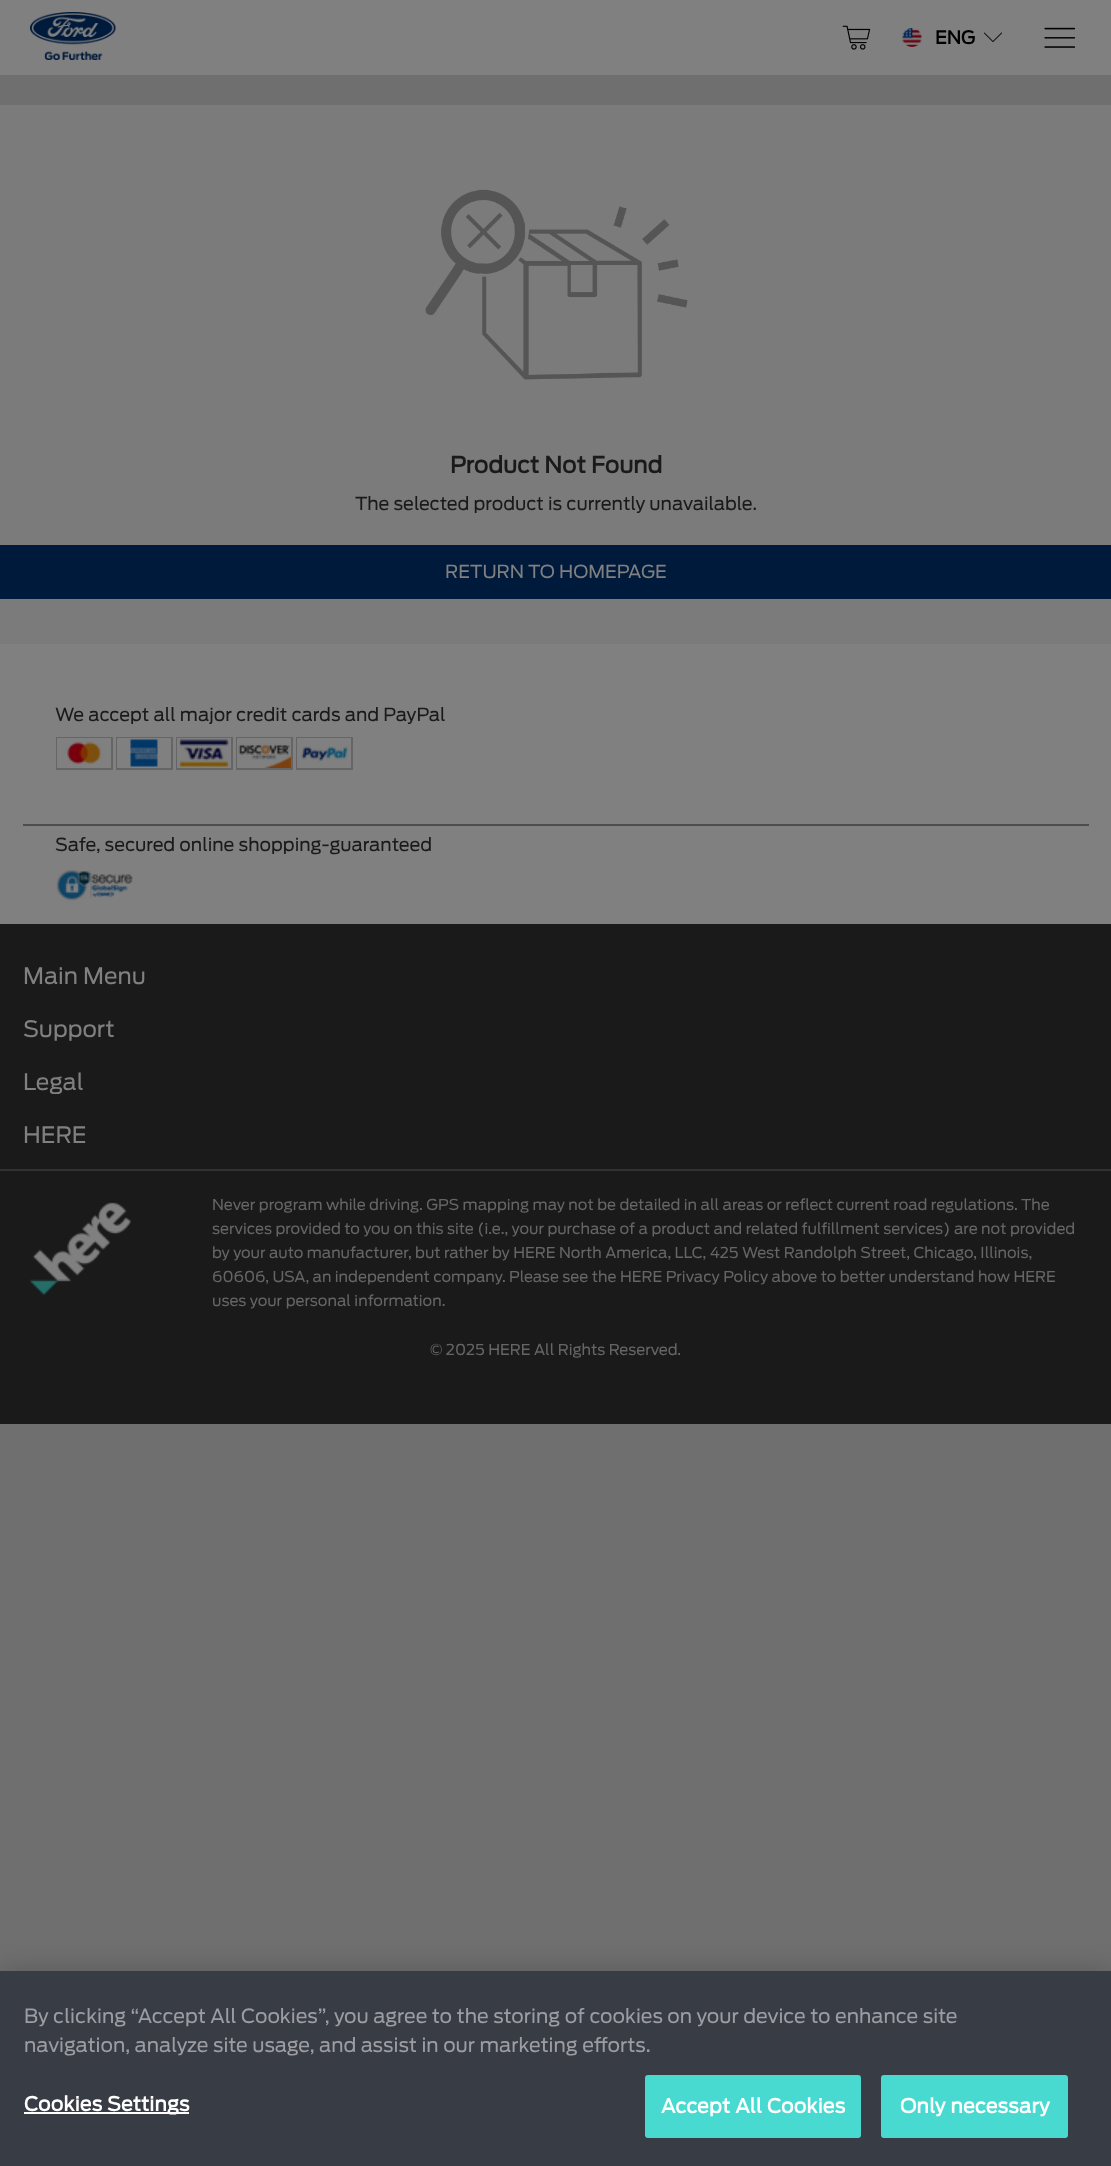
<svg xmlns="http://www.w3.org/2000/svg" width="1111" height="2166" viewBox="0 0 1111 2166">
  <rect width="100%" height="100%" fill="#6f6f70"/>
  <path d="M0 0h1111v75H0z" fill="#808080"/>
  <image x="30" y="12" width="86" height="48" href="img/1.png"/>
  <image x="842" y="25" width="29" height="25" href="img/2.png"/>
  <image x="902" y="28" width="20" height="19" href="img/3.png"/>
  <image x="984" y="32" width="18" height="10" href="img/4.png"/>
  <image x="1044" y="27" width="32" height="21" href="img/5.png"/>
  <path d="M0 105h1111v539H0z" fill="#7b7b7b"/>
  <image x="425" y="189" width="263" height="191" href="img/6.png"/>
  <path d="M0 545h1111v54H0z" fill="#001a3c"/>
  <path d="M0 644h1111v280H0z" fill="#808080"/>
  <path d="M57 738h55v31H57z" fill="none" stroke="#656565" stroke-width="2"/>
  <image x="57" y="738" width="54" height="30" href="img/7.png"/>
  <path d="M117 738h55v31H117z" fill="none" stroke="#656565" stroke-width="2"/>
  <image x="117" y="738" width="54" height="30" href="img/8.png"/>
  <path d="M177 738h55v31H177z" fill="none" stroke="#656565" stroke-width="2"/>
  <image x="177" y="738" width="54" height="30" href="img/9.png"/>
  <path d="M237 738h55v31H237z" fill="none" stroke="#656565" stroke-width="2"/>
  <image x="237" y="738" width="54" height="30" href="img/10.png"/>
  <path d="M297 738h55v31H297z" fill="none" stroke="#656565" stroke-width="2"/>
  <image x="297" y="738" width="54" height="30" href="img/11.png"/>
  <path d="M23 824h1066v2H23z" fill="#4d4d4d"/>
  <image x="56" y="869" width="77" height="32" href="img/12.png"/>
  <path d="M0 924h1111v500H0z" fill="#1a1a1a"/>
  <path d="M0 1169h1111v2H0z" fill="#323232"/>
  <image x="29" y="1202" width="102" height="93" href="img/13.png"/>
  <path d="M0 1971h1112v195H0z" fill="#00000033" filter="blur(13.5px)"/>
  <path d="M0 1971h1111v195H0z" fill="#383c45"/>
  <path d="M24 2112h165v2H24z" fill="#fff"/>
  <rect x="646" y="2076" width="214" height="61" rx="2" fill="#48dad0" stroke="#48dad0" stroke-width="2"/>
  <rect x="882" y="2076" width="185" height="61" rx="2" fill="#48dad0" stroke="#48dad0" stroke-width="2"/>
  <text x="935" y="44" font-family="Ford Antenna" font-size="18" font-weight="bold" fill="#000">ENG</text>
  <text x="450" y="473" font-family="Ford Antenna" font-size="22.5" font-weight="bold" fill="#1a1a1a">Product Not Found</text>
  <text x="355" y="510" font-family="Ford Antenna" font-size="18" fill="#1a1a1a">The selected product is currently unavailable.</text>
  <text x="445" y="578" font-family="Ford Antenna" font-size="18" fill="#808080">RETURN TO HOMEPAGE</text>
  <g font-family="Ford Antenna" font-size="18" fill="#1a1a1a">
    <text x="55" y="721">We accept all major credit cards and PayPal</text>
    <text x="55" y="851">Safe, secured online shopping-guaranteed</text>
  </g>
  <g font-family="Ford Antenna" font-size="22.5" fill="#808080">
    <text x="23" y="984">Main Menu</text>
    <text x="23" y="1037">Support</text>
    <text x="23" y="1090">Legal</text>
    <text x="23" y="1143">HERE</text>
  </g>
  <g font-family="Ford Antenna" font-size="15" fill="#656565">
    <text x="212" y="1210">Never program while driving. GPS mapping may not be detailed in all areas or reflect current road regulations. The</text>
    <text x="212" y="1234">services provided to you on this site (i.e., your purchase of a product and related fulfillment services) are not provided</text>
    <text x="212" y="1258">by your auto manufacturer, but rather by HERE North America, LLC, 425 West Randolph Street, Chicago, Illinois,</text>
    <text x="212" y="1282">60606, USA, an independent company. Please see the HERE Privacy Policy above to better understand how HERE</text>
    <text x="212" y="1306">uses your personal information.</text>
    <text x="430" y="1355">© 2025 HERE All Rights Reserved.</text>
  </g>
  <g font-family="Ford Antenna" font-size="19.5" fill="#9b9da2">
    <text x="24" y="2023">By clicking “Accept All Cookies”, you agree to the storing of cookies on your device to enhance site</text>
    <text x="24" y="2052">navigation, analyze site usage, and assist in our marketing efforts.</text>
  </g>
  <g font-family="Ford Antenna" font-size="19.5" font-weight="bold" letter-spacing="0.25" fill="#fff">
    <text x="24" y="2111">Cookies Settings</text>
    <text x="661" y="2113">Accept All Cookies</text>
    <text x="900" y="2113">Only necessary</text>
  </g>
</svg>
